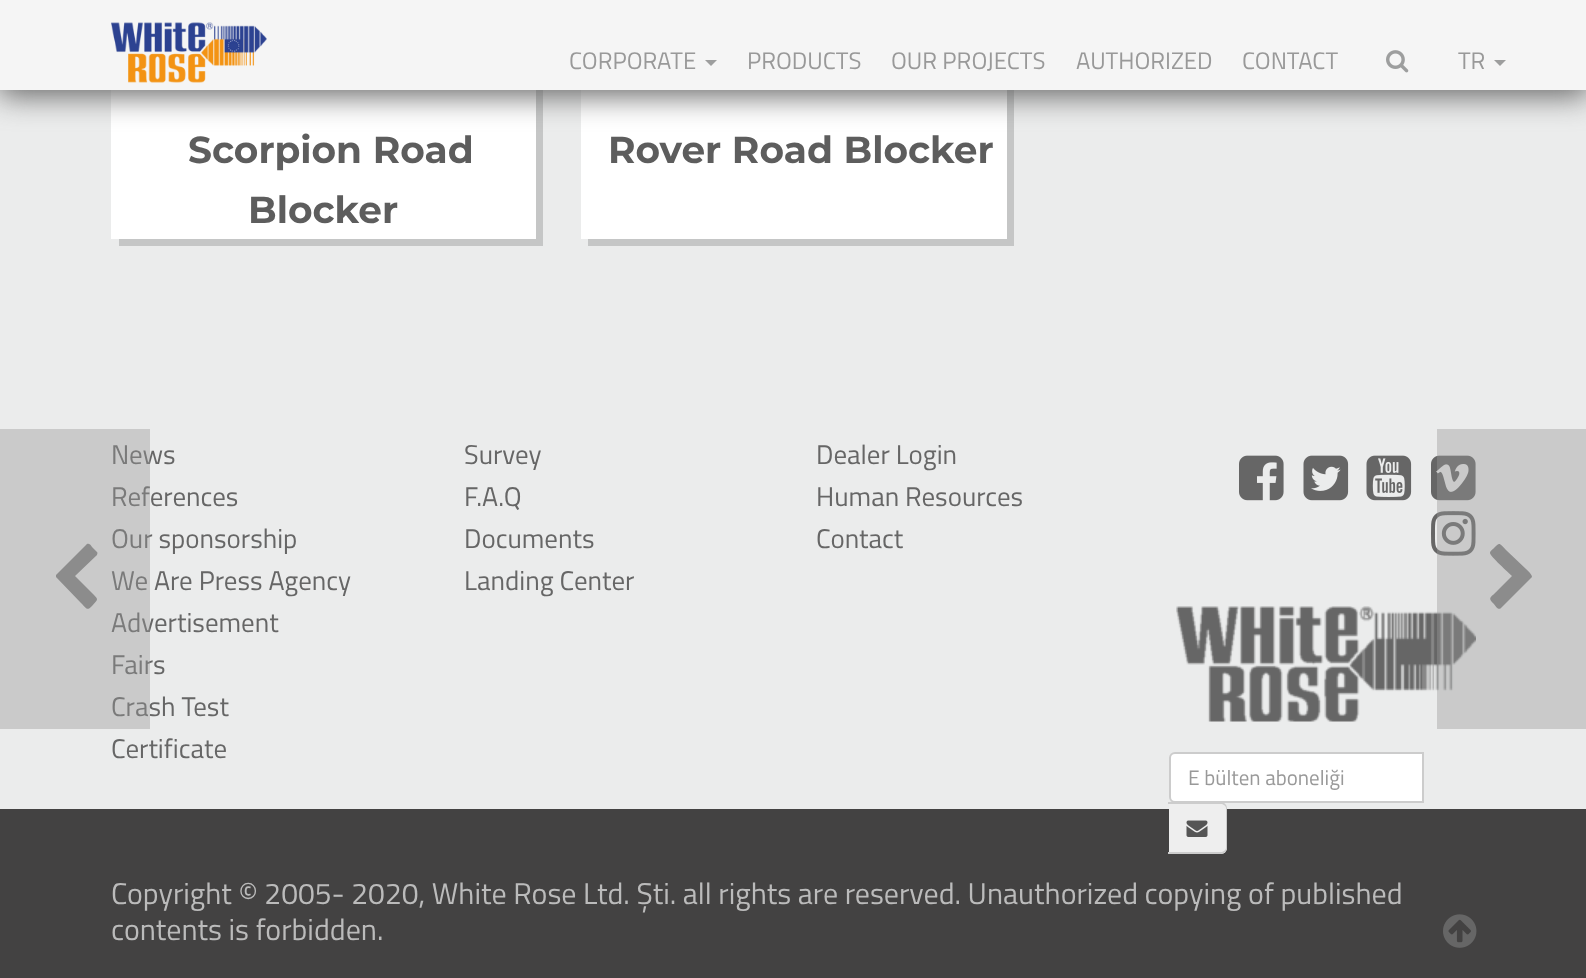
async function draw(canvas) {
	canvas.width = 1586;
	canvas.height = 978;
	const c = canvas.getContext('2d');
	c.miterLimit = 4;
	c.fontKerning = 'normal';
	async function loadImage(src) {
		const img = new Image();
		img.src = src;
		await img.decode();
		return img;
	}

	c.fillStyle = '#ebecec';
	c.fillRect(0, 0, 1586, 978);
	c.fillStyle = '#c5c6c6';
	c.beginPath();
	c.moveTo(119, 238);
	c.lineTo(119, 246);
	c.lineTo(543, 246);
	c.lineTo(543, -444);
	c.lineTo(536, -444);
	c.lineTo(536, 238);
	c.closePath();
	c.fill();
	c.fillStyle = '#fff';
	c.fillRect(111, 90, 425, 149);
	c.fillStyle = '#c5c6c6';
	c.beginPath();
	c.moveTo(588, 238);
	c.lineTo(588, 246);
	c.lineTo(1014, 246);
	c.lineTo(1014, -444);
	c.lineTo(1006, -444);
	c.lineTo(1006, 238);
	c.closePath();
	c.fill();
	c.fillStyle = '#fff';
	c.fillRect(581, 90, 426, 149);
	c.fillStyle = '#666';
	c.filter = 'blur(15px)';
	c.beginPath();
	c.rect(-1, 3, 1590, 93);
	c.fill();
	c.filter = 'none';
	c.fillStyle = '#f5f5f5';
	c.fillRect(0, 0, 1586, 90);
	c.drawImage(await loadImage('img1.png'), 111, 22, 156, 61);
	c.font = '24px Titillium Web';
	c.fillStyle = '#999';
	c.fillText('CORPORATE', 569, 69);
	c.fillStyle = '#9d9e9e';
	c.beginPath();
	c.moveTo(705, 60);
	c.lineTo(717, 60);
	c.lineTo(711, 66);
	c.closePath();
	c.fill();
	c.fillStyle = '#999';
	for (const [text, x, y] of [
		['PRODUCTS', 747, 69],
		['OUR PROJECTS', 891, 69],
		['AUTHORIZED', 1076, 69],
		['CONTACT', 1242, 69],
	]) {
		c.fillText(text, x, y);
	}
	c.drawImage(await loadImage('img2.png'), 1386, 50, 23, 23);
	c.fillText('TR', 1458, 69);
	c.fillStyle = '#9d9e9e';
	c.beginPath();
	c.moveTo(1494, 60);
	c.lineTo(1506, 60);
	c.lineTo(1500, 66);
	c.closePath();
	c.fill();
	c.font = 'bold 37.5px Montserrat';
	c.fillStyle = '#5d5d5d';
	for (const [text, x, y] of [
		['Scorpion Road', 188, 163],
		['Blocker', 248, 223],
		['Rover Road Blocker', 608, 163],
	]) {
		c.fillText(text, x, y);
	}
	c.font = '27px Titillium Web';
	c.fillStyle = '#666';
	for (const [text, x, y] of [
		['News', 111, 464],
		['References', 111, 506],
		['Our sponsorship', 111, 548],
		['We Are Press Agency', 111, 590],
		['Advertisement', 111, 632],
		['Fairs', 111, 674],
		['Crash Test', 111, 716],
	]) {
		c.fillText(text, x, y);
	}
	c.fillStyle = '#99999966';
	c.fillRect(0, 429, 150, 300);
	c.fillStyle = '#8c8c8c';
	c.beginPath();
	c.moveTo(97, 555);
	c.lineTo(75, 576);
	c.lineTo(93, 594);
	c.bezierCurveTo(99, 600, 98, 599, 92, 606);
	c.bezierCurveTo(87, 611, 87, 609, 81, 603);
	c.lineTo(56, 577);
	c.lineTo(56, 575);
	c.lineTo(86, 545);
	c.bezierCurveTo(88, 542, 91, 545, 92, 547);
	c.lineTo(97, 552);
	c.bezierCurveTo(98, 553, 97, 554, 97, 555);
	c.closePath();
	c.fill();
	c.fillStyle = '#434242';
	c.fillRect(0, 809, 1586, 169);
	c.fillStyle = '#666';
	for (const [text, x, y] of [
		['Certificate', 111, 758],
		['Survey', 464, 464],
		['F.A.Q', 464, 506],
		['Documents', 464, 548],
		['Landing Center', 464, 590],
		['Dealer Login', 816, 464],
		['Human Resources', 816, 506],
		['Contact', 816, 548],
	]) {
		c.fillText(text, x, y);
	}
	c.drawImage(await loadImage('img3.png'), 1239, 455, 45, 46);
	c.drawImage(await loadImage('img4.png'), 1303, 455, 46, 46);
	c.drawImage(await loadImage('img5.png'), 1366, 455, 46, 46);
	c.drawImage(await loadImage('img6.png'), 1431, 455, 45, 46);
	c.drawImage(await loadImage('img7.png'), 1431, 511, 45, 45);
	c.drawImage(await loadImage('img8.png'), 1176, 606, 300, 116);
	c.fillStyle = '#eee';
	c.beginPath();
	c.roundRect(1169, 803, 58, 51, [0, 6, 6, 0]);
	c.fill();
	c.fillStyle = '#ccc';
	c.beginPath();
	c.moveTo(1168, 802);
	c.lineTo(1221, 802);
	c.bezierCurveTo(1224, 802, 1227, 805, 1227, 808);
	c.lineTo(1227, 848);
	c.bezierCurveTo(1227, 851, 1224, 854, 1221, 854);
	c.lineTo(1168, 854);
	c.closePath();
	c.moveTo(1168, 804);
	c.lineTo(1221, 804);
	c.bezierCurveTo(1223, 804, 1226, 806, 1226, 808);
	c.lineTo(1226, 848);
	c.bezierCurveTo(1226, 850, 1223, 852, 1221, 852);
	c.lineTo(1168, 852);
	c.closePath();
	c.fill('evenodd');
	c.fillStyle = '#fff';
	c.beginPath();
	c.roundRect(1170, 753, 253, 49, [5, 0, 0, 5]);
	c.fill();
	c.strokeStyle = '#ccc';
	c.lineWidth = 2;
	c.stroke();
	c.font = '21px Titillium Web';
	c.fillStyle = '#999';
	c.fillText('E bülten aboneliği', 1188, 785);
	c.drawImage(await loadImage('img9.png'), 1186, 820, 22, 17);
	c.font = '30px Titillium Web';
	c.fillStyle = '#bbb';
	c.fillText('Copyright © 2005- 2020, White Rose Ltd. Şti. all rights are reserved. Unauthorized copying of published', 111, 904);
	c.fillText('contents is forbidden.', 111, 940);
	c.drawImage(await loadImage('img10.png'), 1443, 914, 34, 34);
	c.fillStyle = '#99999966';
	c.fillRect(1437, 429, 149, 300);
	c.fillStyle = '#8c8c8c';
	c.beginPath();
	c.moveTo(1531, 578);
	c.lineTo(1501, 608);
	c.bezierCurveTo(1498, 611, 1495, 605, 1493, 603);
	c.bezierCurveTo(1487, 597, 1492, 597, 1498, 590);
	c.lineTo(1512, 576);
	c.bezierCurveTo(1509, 573, 1490, 556, 1490, 553);
	c.bezierCurveTo(1490, 551, 1493, 549, 1494, 548);
	c.bezierCurveTo(1500, 542, 1499, 543, 1506, 550);
	c.lineTo(1526, 569);
	c.bezierCurveTo(1527, 570, 1532, 574, 1532, 577);
	c.closePath();
	c.fill();
}

draw(document.querySelector('canvas'));
